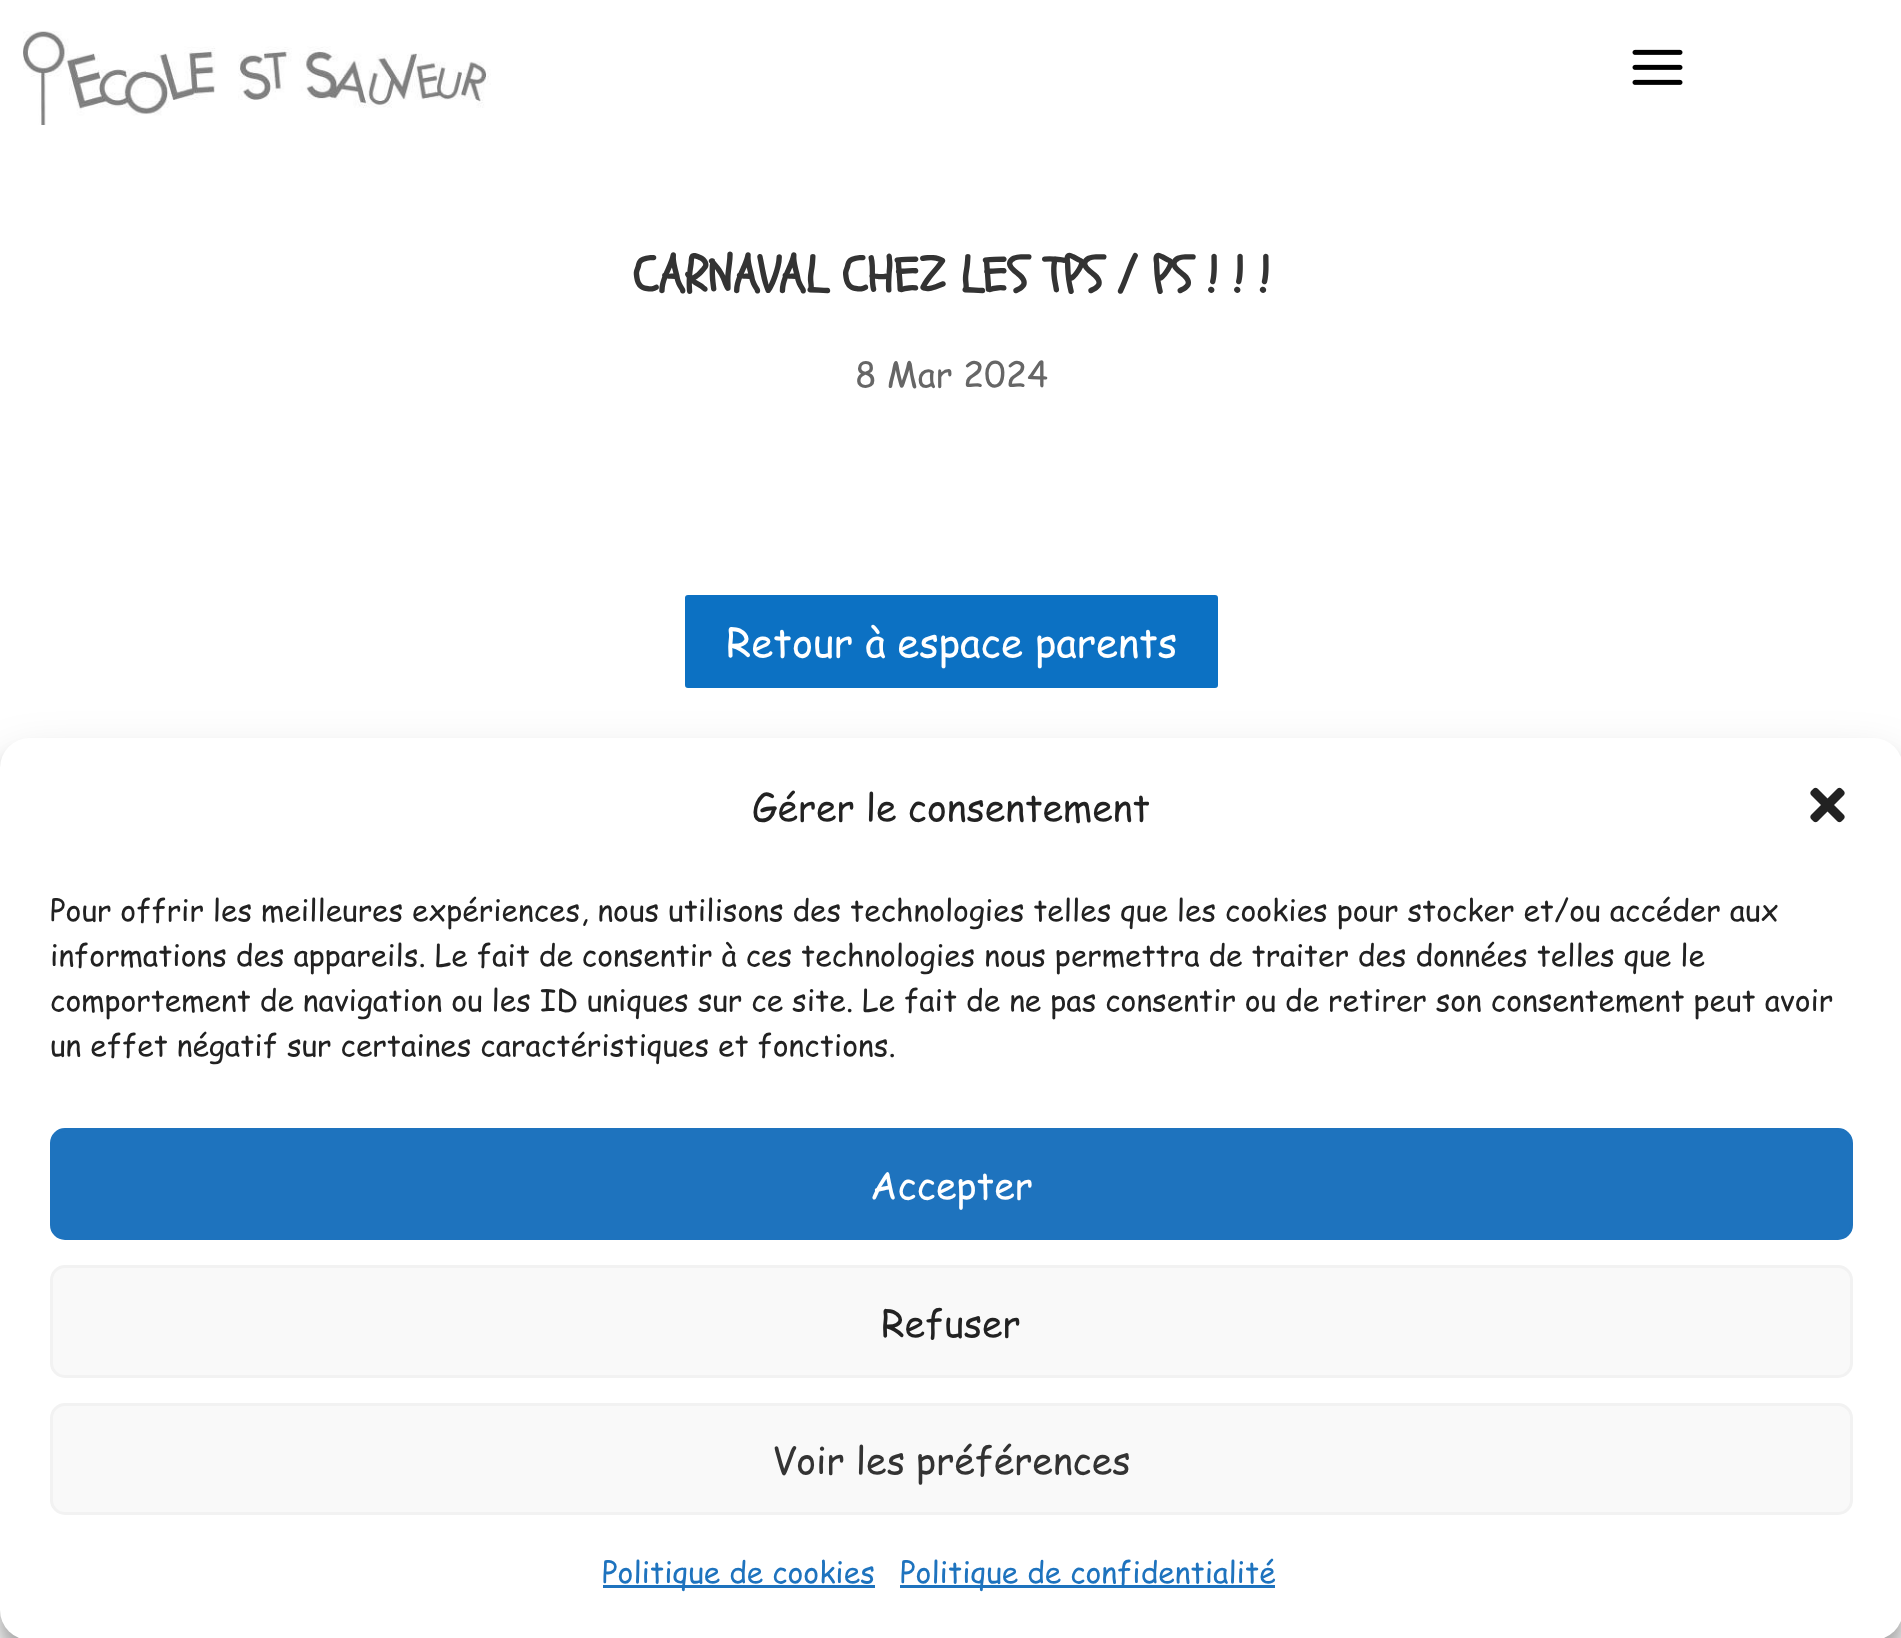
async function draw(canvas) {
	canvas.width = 1901;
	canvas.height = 1638;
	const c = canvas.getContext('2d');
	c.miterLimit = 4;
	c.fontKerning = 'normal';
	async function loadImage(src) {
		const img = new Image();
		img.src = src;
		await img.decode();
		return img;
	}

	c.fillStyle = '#fff';
	c.fillRect(0, 0, 1901, 1638);
	c.drawImage(await loadImage('img1.png'), 23, 31, 468, 94);
	c.drawImage(await loadImage('img2.png'), 1632, 49, 51, 36);
	c.font = 'bold 50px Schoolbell';
	c.fillStyle = '#333';
	c.fillText('CARNAVAL CHEZ LES TPS / PS ! ! !', 633, 292);
	c.font = '35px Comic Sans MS';
	c.fillStyle = '#666';
	c.fillText('8 Mar 2024', 855, 387);
	c.fillStyle = '#0c71c3';
	c.beginPath();
	c.roundRect(682.5, 592.5, 538, 98, 5.5);
	c.fill();
	c.strokeStyle = '#fff';
	c.lineWidth = 5;
	c.stroke();
	c.font = '40px Comic Sans MS';
	c.fillStyle = '#fff';
	c.fillText('Retour à espace parents', 726, 657);
	c.fillStyle = '#0000003b';
	c.filter = 'blur(7.5px)';
	c.beginPath();
	c.roundRect(0, 753, 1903, 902, 30);
	c.fill();
	c.filter = 'none';
	c.fillStyle = '#00000030';
	c.filter = 'blur(25px)';
	c.beginPath();
	c.roundRect(0, 763, 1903, 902, 30);
	c.fill();
	c.filter = 'none';
	c.fillStyle = '#fff';
	c.beginPath();
	c.roundRect(0, 738, 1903, 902, 30);
	c.fill();
	c.font = '37.5px Comic Sans MS';
	c.fillStyle = '#222';
	c.fillText('Gérer le consentement', 752, 821);
	c.drawImage(await loadImage('img3.png'), 1810, 787, 35, 36);
	c.font = '30px Comic Sans MS';
	for (const [text, x, y] of [
		['Pour offrir les meilleures expériences, nous utilisons des technologies telles que les cookies pour stocker et/ou accéder aux', 50, 921],
		['informations des appareils. Le fait de consentir à ces technologies nous permettra de traiter des données telles que le', 50, 966],
		['comportement de navigation ou les ID uniques sur ce site. Le fait de ne pas consentir ou de retirer son consentement peut avoir', 50, 1011],
		['un effet négatif sur certaines caractéristiques et fonctions.', 50, 1056],
	]) {
		c.fillText(text, x, y);
	}
	c.fillStyle = '#1e73be';
	c.beginPath();
	c.roundRect(51.5, 1129.5, 1800, 109, 13.5);
	c.fill();
	c.strokeStyle = '#1e73be';
	c.lineWidth = 3;
	c.stroke();
	c.font = '37.5px Comic Sans MS';
	c.fillStyle = '#fff';
	c.fillText('Accepter', 870, 1199);
	c.fillStyle = '#f9f9f9';
	c.beginPath();
	c.roundRect(51.5, 1266.5, 1800, 110, 13.5);
	c.fill();
	c.strokeStyle = '#f2f2f2';
	c.stroke();
	c.fillStyle = '#222';
	c.fillText('Refuser', 881, 1337);
	c.fillStyle = '#f9f9f9';
	c.beginPath();
	c.roundRect(51.5, 1404.5, 1800, 109, 13.5);
	c.fill();
	c.stroke();
	c.fillStyle = '#333';
	c.fillText('Voir les préférences', 772, 1474);
	c.fillStyle = '#1e73be';
	c.fillRect(603, 1585, 272, 3);
	c.font = '30px Comic Sans MS';
	c.fillText('Politique de cookies', 602, 1583);
	c.fillRect(900, 1585, 375, 3);
	c.fillText('Politique de confidentialité', 900, 1583);
}

draw(document.querySelector('canvas'));
